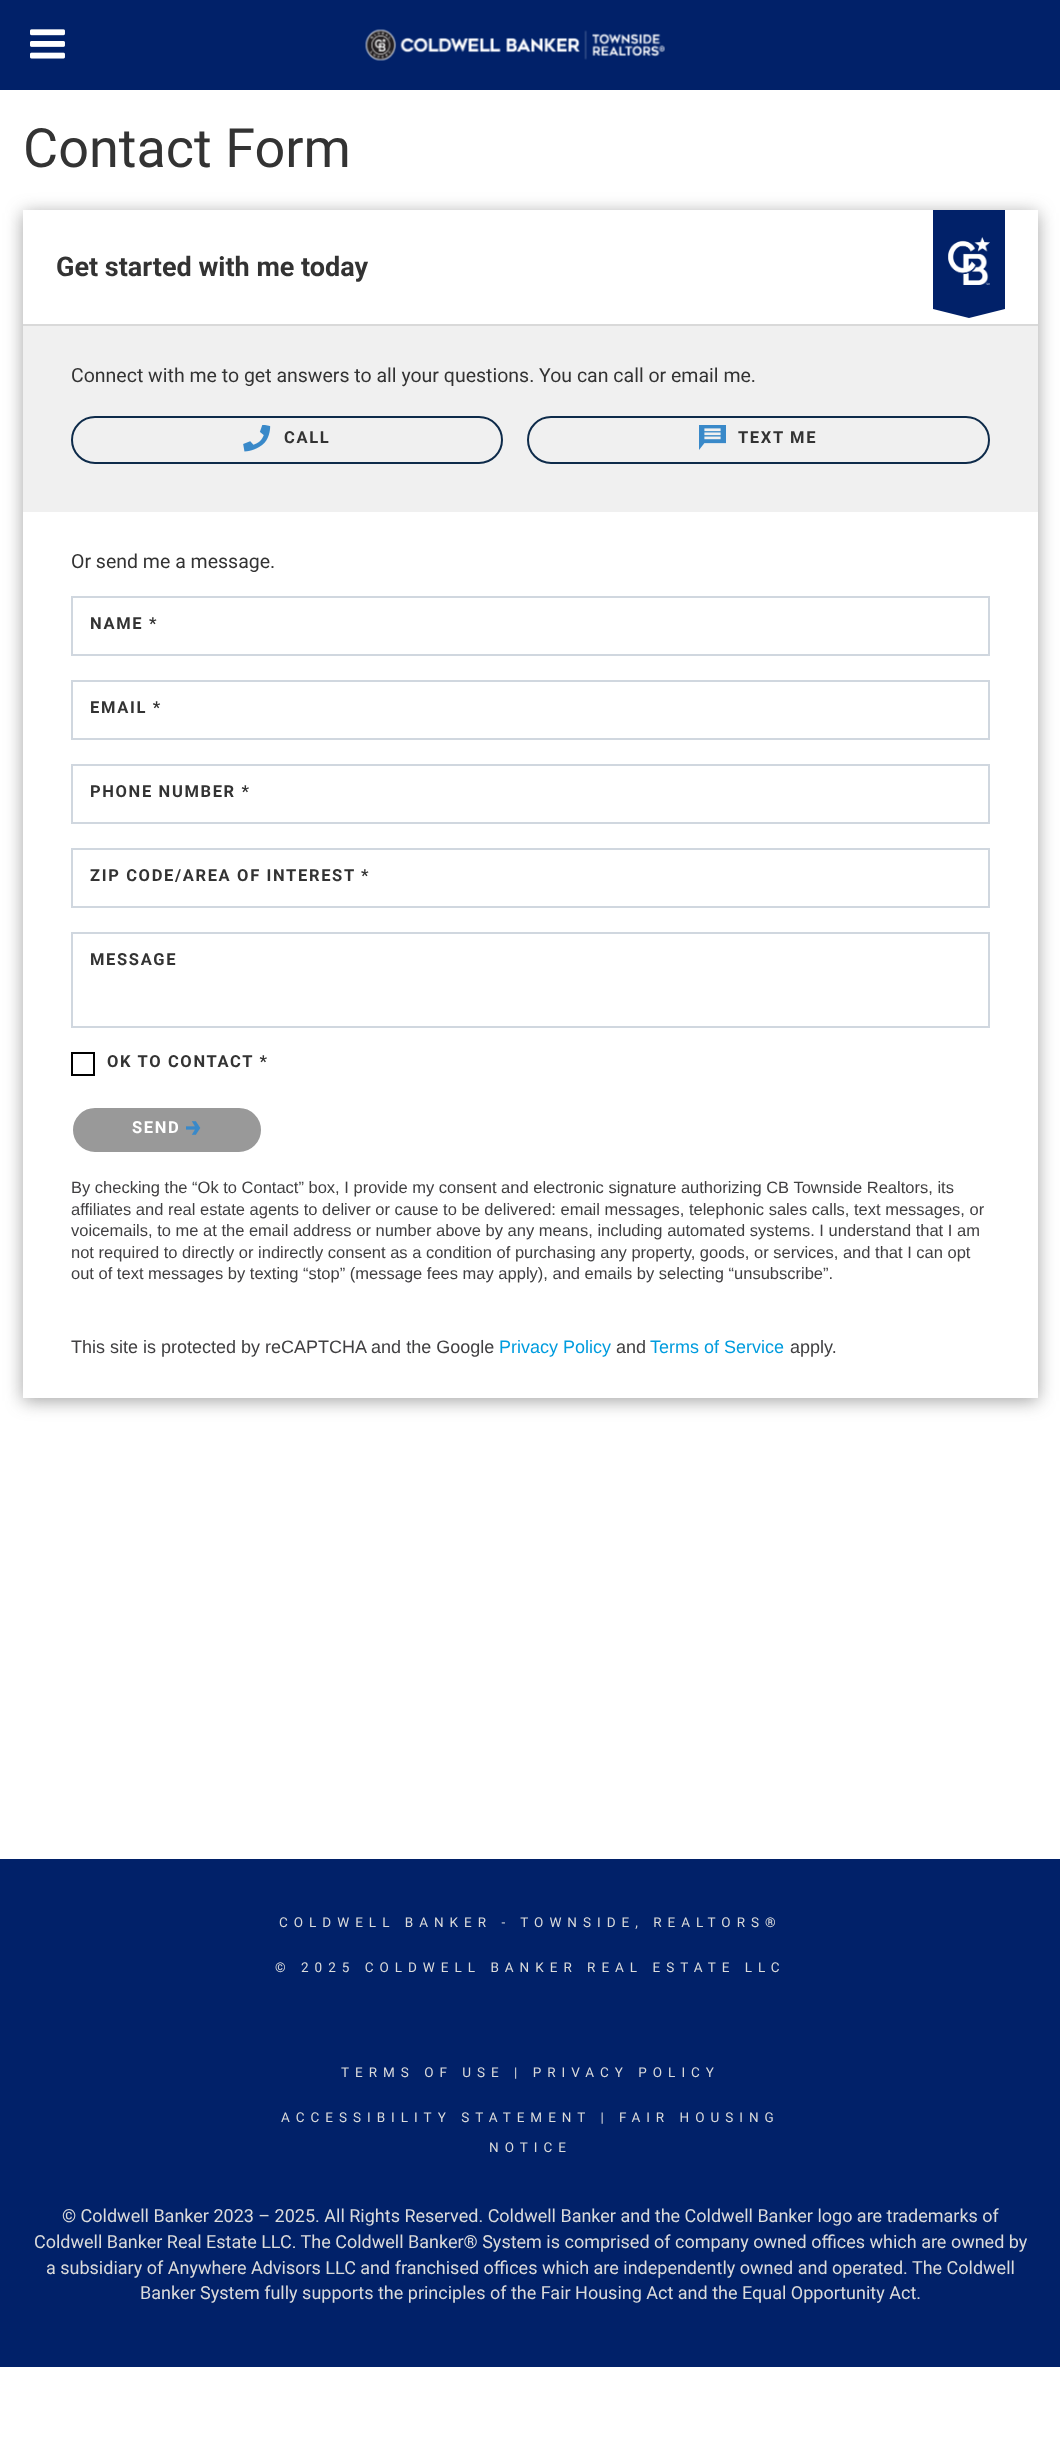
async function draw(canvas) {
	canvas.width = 1060;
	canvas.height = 2456;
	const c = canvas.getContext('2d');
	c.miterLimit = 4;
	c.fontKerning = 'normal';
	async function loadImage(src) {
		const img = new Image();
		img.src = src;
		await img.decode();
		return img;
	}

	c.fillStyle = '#fff';
	c.fillRect(0, 0, 1060, 2456);
	c.fillStyle = '#012169';
	c.fillRect(0, 0, 1060, 90);
	c.drawImage(await loadImage('img1.png'), 30, 29, 35, 30);
	c.drawImage(await loadImage('img2.png'), 365, 29, 300, 32);
	c.font = '54px Roboto';
	c.fillStyle = '#333';
	c.fillText('Contact Form', 23, 167);
	c.save();
	c.beginPath();
	c.moveTo(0, 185);
	c.lineTo(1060, 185);
	c.lineTo(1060, 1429);
	c.lineTo(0, 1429);
	c.closePath();
	c.moveTo(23, 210);
	c.lineTo(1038, 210);
	c.lineTo(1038, 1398);
	c.lineTo(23, 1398);
	c.closePath();
	c.clip('evenodd');
	c.fillStyle = '#47474780';
	c.filter = 'blur(9px)';
	c.beginPath();
	c.rect(23, 213, 1015, 1188);
	c.fill();
	c.filter = 'none';
	c.restore();
	c.fillStyle = '#d9d9d9';
	c.fillRect(23, 324, 1015, 2);
	c.font = 'bold 27px Roboto';
	c.fillStyle = '#333';
	c.fillText('Get started with me today', 56, 276);
	c.drawImage(await loadImage('img3.png'), 933, 210, 72, 108);
	c.fillStyle = '#f0f0f0';
	c.fillRect(23, 326, 1015, 186);
	c.font = '19.5px Roboto';
	c.fillStyle = '#333';
	c.fillText('Connect with me to get answers to all your questions. You can call or email me.', 71, 382);
	c.beginPath();
	c.roundRect(72, 417, 430, 46, 23);
	c.strokeStyle = '#0e2b4a';
	c.lineWidth = 2;
	c.stroke();
	c.drawImage(await loadImage('img4.png'), 243, 425, 28, 27);
	c.letterSpacing = '1.65px';
	c.font = 'bold 16.5px Roboto';
	c.fillText('CALL', 284, 443);
	c.beginPath();
	c.roundRect(528, 417, 461, 46, 23);
	c.stroke();
	c.drawImage(await loadImage('img5.png'), 699, 425, 27, 25);
	c.fillText('TEXT ME', 738, 443);
	c.letterSpacing = '0px';
	c.font = '19.5px Roboto';
	c.fillText('Or send me a message.', 71, 568);
	c.strokeStyle = '#d0d7df';
	c.strokeRect(72, 597, 917, 58);
	c.letterSpacing = '1.65px';
	c.font = 'bold 16.5px Roboto';
	c.fillText('NAME *', 90, 629);
	c.strokeRect(72, 681, 917, 58);
	c.fillText('EMAIL *', 90, 713);
	c.strokeRect(72, 765, 917, 58);
	c.fillText('PHONE NUMBER *', 90, 797);
	c.strokeRect(72, 849, 917, 58);
	c.fillText('ZIP CODE/AREA OF INTEREST *', 90, 881);
	c.strokeRect(72, 933, 917, 94);
	c.fillText('MESSAGE', 90, 965);
	c.strokeStyle = '#000';
	c.strokeRect(72, 1053, 22, 22);
	c.fillText('OK TO CONTACT *', 107, 1067);
	c.fillStyle = '#999';
	c.beginPath();
	c.roundRect(72, 1107, 190, 46, 23);
	c.fill();
	c.strokeStyle = '#fff';
	c.stroke();
	c.fillStyle = '#fff';
	c.fillText('SEND', 132, 1133);
	c.drawImage(await loadImage('img6.png'), 186, 1121, 15, 14);
	c.letterSpacing = '0px';
	c.font = '16.5px Liberation Sans';
	c.fillStyle = '#414042';
	for (const [text, x, y] of [
		['By checking the “Ok to Contact” box, I provide my consent and electronic signature authorizing CB Townside Realtors, its', 71, 1193],
		['affiliates and real estate agents to deliver or cause to be delivered: email messages, telephonic sales calls, text messages, or', 71, 1215],
		['voicemails, to me at the email address or number above by any means, including automated systems. I understand that I am', 71, 1236],
		['not required to directly or indirectly consent as a condition of purchasing any property, goods, or services, and that I can opt', 71, 1258],
		['out of text messages by texting “stop” (message fees may apply), and emails by selecting “unsubscribe”.', 71, 1279],
	]) {
		c.fillText(text, x, y);
	}
	c.font = '18px Liberation Sans';
	c.fillText('This site is protected by reCAPTCHA and the Google', 71, 1353);
	c.fillStyle = '#009cde';
	c.fillText('Privacy Policy', 499, 1353);
	c.fillStyle = '#414042';
	c.fillText('and', 616, 1353);
	c.fillStyle = '#009cde';
	c.fillText('Terms of Service', 650, 1353);
	c.fillStyle = '#414042';
	c.fillText('apply.', 790, 1353);
	c.fillStyle = '#012169';
	c.fillRect(0, 1859, 1060, 508);
	c.letterSpacing = '6px';
	c.font = '13.5px Roboto';
	c.fillStyle = '#dbdbdb';
	for (const [text, x, y] of [
		['COLDWELL BANKER - TOWNSIDE, REALTORS®', 279, 1927],
		['© 2025 COLDWELL BANKER REAL ESTATE LLC', 275, 1972],
		['TERMS OF USE | PRIVACY POLICY', 341, 2077],
		['ACCESSIBILITY STATEMENT | FAIR HOUSING', 281, 2122],
		['NOTICE', 489, 2152],
	]) {
		c.fillText(text, x, y);
	}
	c.letterSpacing = '0px';
	c.font = '18px Roboto';
	for (const [text, x, y] of [
		['© Coldwell Banker 2023 – 2025. All Rights Reserved. Coldwell Banker and the Coldwell Banker logo are trademarks of', 62, 2222],
		['Coldwell Banker Real Estate LLC. The Coldwell Banker® System is comprised of company owned offices which are owned by', 34, 2248],
		['a subsidiary of Anywhere Advisors LLC and franchised offices which are independently owned and operated. The Coldwell', 46, 2274],
		['Banker System fully supports the principles of the Fair Housing Act and the Equal Opportunity Act.', 140, 2299],
	]) {
		c.fillText(text, x, y);
	}
}

draw(document.querySelector('canvas'));
